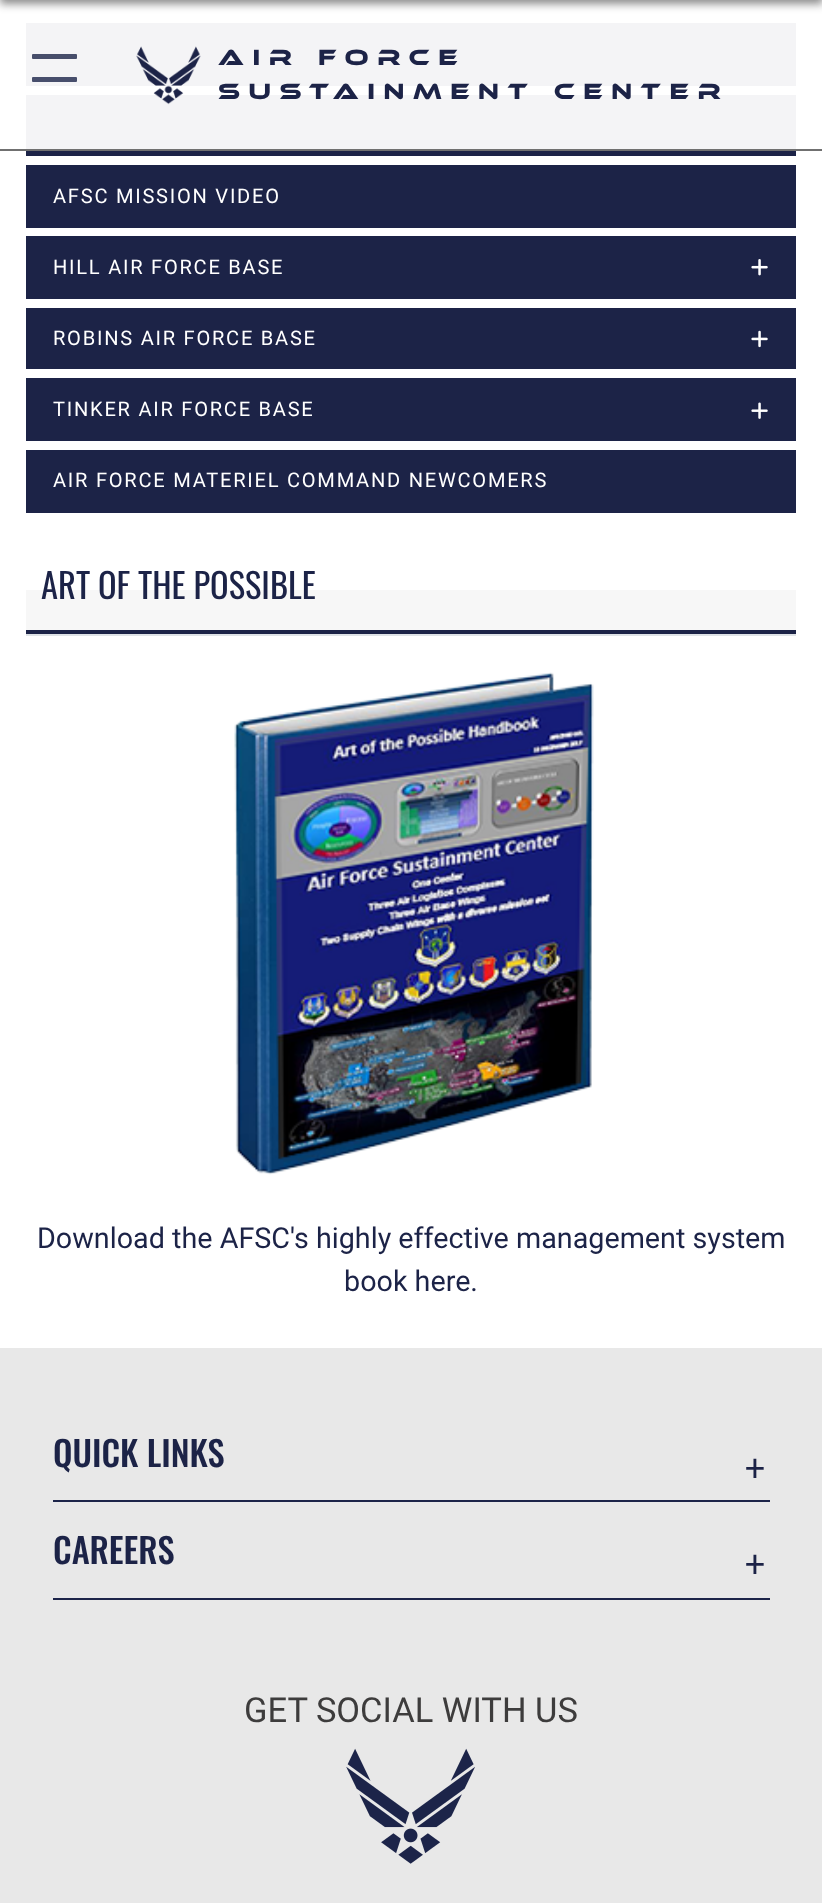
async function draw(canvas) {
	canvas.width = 822;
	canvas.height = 1903;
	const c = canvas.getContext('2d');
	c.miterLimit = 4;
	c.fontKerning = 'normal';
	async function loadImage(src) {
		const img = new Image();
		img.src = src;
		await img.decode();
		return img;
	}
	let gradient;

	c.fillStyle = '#fff';
	c.fillRect(0, 0, 822, 1903);
	c.fillStyle = '#19191980';
	c.filter = 'blur(4.5px)';
	c.beginPath();
	c.rect(0, -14, 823, 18);
	c.fill();
	c.filter = 'none';
	c.fillStyle = '#707070';
	c.fillRect(0, 149, 822, 2);
	c.fillStyle = '#f4f4f6';
	c.fillRect(26, 23, 770, 63);
	c.fillStyle = '#1c2449cc';
	c.beginPath();
	c.roundRect(32, 54, 45, 5, 1);
	c.fill();
	c.fillStyle = '#474e6c';
	c.beginPath();
	c.roundRect(32, 77, 45, 5, 1);
	c.fill();
	c.fillStyle = '#f4f4f6';
	c.fillRect(26, 95, 770, 54);
	c.drawImage(await loadImage('img1.png'), 136, 46, 65, 59);
	c.letterSpacing = '8.6px';
	c.font = '22.75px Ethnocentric';
	c.fillStyle = '#1c2347';
	c.fillText('Air Force', 218, 65);
	c.fillText('Sustainment Center', 218, 99);
	c.fillRect(26, 151, 770, 5);
	c.fillRect(26, 165, 770, 63);
	c.letterSpacing = '1.75px';
	c.font = '20.1px Roboto';
	c.fillStyle = '#fff';
	c.fillText('AFSC MISSION VIDEO', 53, 203);
	c.fillStyle = '#1c2347';
	c.fillRect(26, 236, 770, 63);
	c.fillStyle = '#fff';
	c.fillText('HILL AIR FORCE BASE', 53, 274);
	c.drawImage(await loadImage('img2.png'), 751, 259, 17, 17);
	c.fillStyle = '#1c2347';
	c.fillRect(26, 308, 770, 61);
	c.fillStyle = '#fff';
	c.fillText('ROBINS AIR FORCE BASE', 53, 345);
	c.drawImage(await loadImage('img3.png'), 751, 330, 17, 18);
	c.fillStyle = '#1c2347';
	c.fillRect(26, 378, 770, 63);
	c.fillStyle = '#fff';
	c.fillText('TINKER AIR FORCE BASE', 53, 416);
	c.drawImage(await loadImage('img4.png'), 751, 402, 17, 17);
	c.fillStyle = '#1c2347';
	c.fillRect(26, 450, 770, 63);
	c.fillStyle = '#fff';
	c.fillText('AIR FORCE MATERIEL COMMAND NEWCOMERS', 53, 487);
	gradient = c.createLinearGradient(411, 564, 411, 634);
	gradient.addColorStop(0, '#fff');
	gradient.addColorStop(0.37, '#fff');
	gradient.addColorStop(0.37, '#f7f7f7');
	gradient.addColorStop(1, '#f7f7f7');
	c.fillStyle = gradient;
	c.fillRect(26, 590, 770, 40);
	c.fillStyle = '#dee2e6';
	c.fillRect(26, 634, 770, 2);
	c.letterSpacing = '0px';
	c.font = '34.5px Oswald';
	c.fillStyle = '#1c2347';
	c.fillText('ART OF THE POSSIBLE', 41, 599);
	c.fillRect(26, 630, 770, 4);
	c.drawImage(await loadImage('img5.png'), 234, 672, 360, 503);
	c.font = '28.75px Roboto';
	c.fillText('Download the AFSC\'s highly effective management system', 37, 1248);
	c.fillText('book here.', 344, 1291);
	c.fillStyle = '#e8e8e8';
	c.fillRect(0, 1348, 822, 555);
	c.fillStyle = '#1c2449';
	c.fillRect(53, 1500, 717, 2);
	c.font = '500 34.5px Oswald';
	c.fillStyle = '#1c2347';
	c.fillText('QUICK LINKS', 53, 1467);
	c.font = '300 52px Oswald';
	c.fillText('+', 745, 1490);
	c.fillStyle = '#1c2449';
	c.fillRect(53, 1598, 717, 2);
	c.font = '500 34.5px Oswald';
	c.fillStyle = '#1c2347';
	c.fillText('CAREERS', 53, 1564);
	c.font = '300 52px Oswald';
	c.fillText('+', 745, 1586);
	c.font = '34.5px Roboto';
	c.fillStyle = '#3d3c3c';
	c.fillText('GET SOCIAL WITH US', 244, 1722);
	c.drawImage(await loadImage('img6.png'), 346, 1748, 129, 116);
}

draw(document.querySelector('canvas'));
